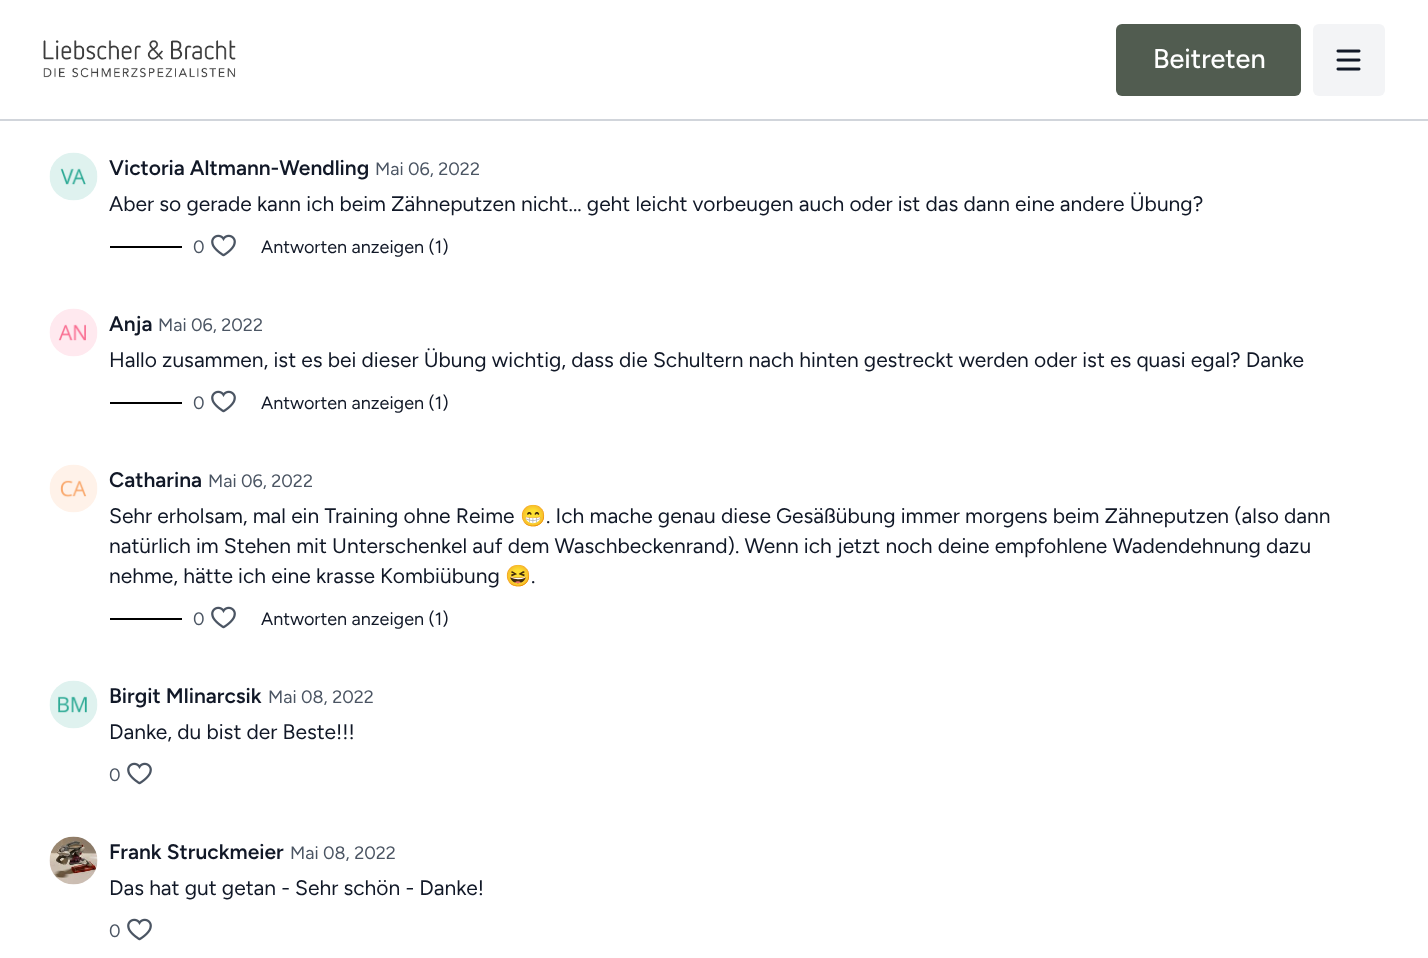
async function draw(canvas) {
	canvas.width = 1428;
	canvas.height = 958;
	const c = canvas.getContext('2d');
	c.miterLimit = 4;
	c.fontKerning = 'normal';
	async function loadImage(src) {
		const img = new Image();
		img.src = src;
		await img.decode();
		return img;
	}

	c.fillStyle = '#fff';
	c.fillRect(0, 0, 1428, 958);
	c.fillStyle = '#d1d5db';
	c.fillRect(0, 119, 1428, 2);
	c.drawImage(await loadImage('img1.png'), 43, 40, 193, 38);
	c.fillStyle = '#515c50';
	c.beginPath();
	c.roundRect(1116, 24, 185, 72, 6);
	c.fill();
	c.font = '500 27px Figtree';
	c.fillStyle = '#fff';
	c.fillText('Beitreten', 1153, 68);
	c.fillStyle = '#f3f4f6';
	c.beginPath();
	c.roundRect(1313, 24, 72, 72, 6);
	c.fill();
	c.drawImage(await loadImage('img2.png'), 1336, 49, 25, 22);
	c.drawImage(await loadImage('img3.png'), 49, 152, 49, 49);
	c.font = '600 21px Figtree';
	c.fillStyle = '#111827';
	c.fillText('Victoria Altmann-Wendling', 109, 175);
	c.font = '18px Figtree';
	c.fillStyle = '#4b5563';
	c.fillText('Mai 06, 2022', 375, 175);
	c.font = '21px Figtree';
	c.fillStyle = '#111827';
	c.fillText('Aber so gerade kann ich beim Zähneputzen nicht... geht leicht vorbeugen auch oder ist das dann eine andere Übung?', 109, 211);
	c.fillStyle = '#000';
	c.fillRect(110, 246, 72, 2);
	c.font = '18px Figtree';
	c.fillStyle = '#4b5563';
	c.fillText('0', 193, 253);
	c.drawImage(await loadImage('img4.png'), 211, 234, 25, 23);
	c.fillStyle = '#111827';
	c.fillText('Antworten anzeigen (1)', 261, 253);
	c.drawImage(await loadImage('img5.png'), 49, 308, 49, 49);
	c.font = '600 21px Figtree';
	c.fillText('Anja', 109, 331);
	c.font = '18px Figtree';
	c.fillStyle = '#4b5563';
	c.fillText('Mai 06, 2022', 158, 331);
	c.font = '21px Figtree';
	c.fillStyle = '#111827';
	c.fillText('Hallo zusammen, ist es bei dieser Übung wichtig, dass die Schultern nach hinten gestreckt werden oder ist es quasi egal? Danke', 109, 367);
	c.fillStyle = '#000';
	c.fillRect(110, 402, 72, 2);
	c.font = '18px Figtree';
	c.fillStyle = '#4b5563';
	c.fillText('0', 193, 409);
	c.drawImage(await loadImage('img4.png'), 211, 390, 25, 23);
	c.fillStyle = '#111827';
	c.fillText('Antworten anzeigen (1)', 261, 409);
	c.drawImage(await loadImage('img6.png'), 49, 464, 49, 49);
	c.font = '600 21px Figtree';
	c.fillText('Catharina', 109, 487);
	c.font = '18px Figtree';
	c.fillStyle = '#4b5563';
	c.fillText('Mai 06, 2022', 208, 487);
	c.font = '21px Figtree';
	c.fillStyle = '#111827';
	c.fillText('Sehr erholsam, mal ein Training ohne Reime', 109, 523);
	c.font = '21px Noto Color Emoji';
	c.fillText('😁', 520, 523);
	c.font = '21px Figtree';
	for (const [text, x, y] of [
		['. Ich mache genau diese Gesäßübung immer morgens beim Zähneputzen (also dann', 546, 523],
		['natürlich im Stehen mit Unterschenkel auf dem Waschbeckenrand). Wenn ich jetzt noch deine empfohlene Wadendehnung dazu', 109, 553],
		['nehme, hätte ich eine krasse Kombiübung', 109, 583],
	]) {
		c.fillText(text, x, y);
	}
	c.font = '21px Noto Color Emoji';
	c.fillText('😆', 505, 583);
	c.font = '21px Figtree';
	c.fillText('.', 531, 583);
	c.fillStyle = '#000';
	c.fillRect(110, 618, 72, 2);
	c.font = '18px Figtree';
	c.fillStyle = '#4b5563';
	c.fillText('0', 193, 625);
	c.drawImage(await loadImage('img4.png'), 211, 606, 25, 23);
	c.fillStyle = '#111827';
	c.fillText('Antworten anzeigen (1)', 261, 625);
	c.drawImage(await loadImage('img7.png'), 49, 680, 49, 49);
	c.font = '600 21px Figtree';
	c.fillText('Birgit Mlinarcsik', 109, 703);
	c.font = '18px Figtree';
	c.fillStyle = '#4b5563';
	c.fillText('Mai 08, 2022', 268, 703);
	c.font = '21px Figtree';
	c.fillStyle = '#111827';
	c.fillText('Danke, du bist der Beste!!!', 109, 739);
	c.font = '18px Figtree';
	c.fillStyle = '#4b5563';
	c.fillText('0', 109, 781);
	c.drawImage(await loadImage('img4.png'), 127, 762, 25, 23);
	c.drawImage(await loadImage('img8.png'), 49, 836, 49, 49);
	c.font = '600 21px Figtree';
	c.fillStyle = '#111827';
	c.fillText('Frank Struckmeier', 109, 859);
	c.font = '18px Figtree';
	c.fillStyle = '#4b5563';
	c.fillText('Mai 08, 2022', 290, 859);
	c.font = '21px Figtree';
	c.fillStyle = '#111827';
	c.fillText('Das hat gut getan - Sehr schön - Danke!', 109, 895);
	c.font = '18px Figtree';
	c.fillStyle = '#4b5563';
	c.fillText('0', 109, 937);
	c.drawImage(await loadImage('img4.png'), 127, 918, 25, 23);
}

draw(document.querySelector('canvas'));
